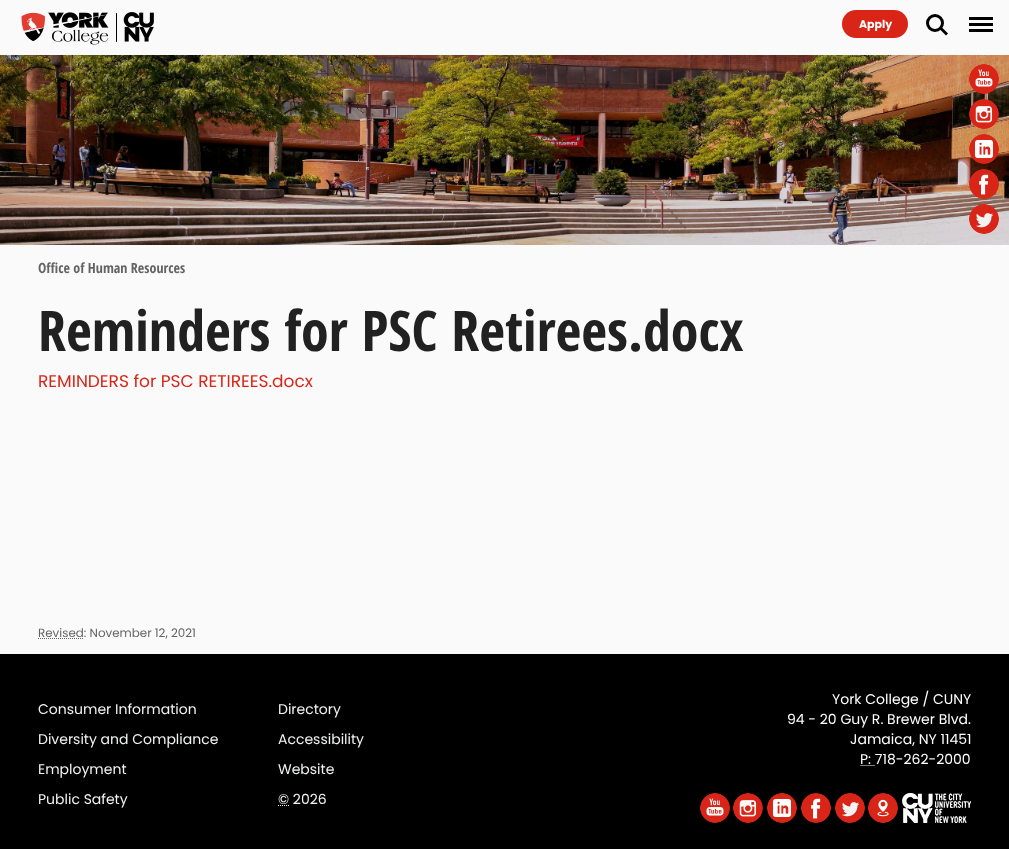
async function draw(canvas) {
	canvas.width = 1009;
	canvas.height = 849;
	const c = canvas.getContext('2d');
	c.miterLimit = 4;
	c.fontKerning = 'normal';
	async function loadImage(src) {
		const img = new Image();
		img.src = src;
		await img.decode();
		return img;
	}

	c.fillStyle = '#fafafa';
	c.fillRect(0, 0, 1009, 849);
	c.drawImage(await loadImage('img1.png'), 21, 12, 133, 33);
	c.fillStyle = '#d92518';
	c.beginPath();
	c.roundRect(842, 10, 66, 28, 14);
	c.fill();
	c.font = 'bold 11px Poppins';
	c.fillStyle = '#fff';
	c.fillText('Apply', 859, 28);
	c.beginPath();
	c.arc(935, 23, 7.5, 0, 2 * Math.PI);
	c.strokeStyle = '#000';
	c.lineWidth = 3;
	c.stroke();
	c.fillStyle = '#000';
	c.beginPath();
	c.moveTo(942, 27.5);
	c.lineTo(948, 33.5);
	c.lineTo(946, 35.5);
	c.lineTo(940, 29.5);
	c.closePath();
	c.fill();
	for (const [x, y, w, h, color] of [
		[969, 23, 24, 3, '#000'],
		[969, 17, 24, 3, '#000'],
		[969, 29, 24, 3, '#000'],
	]) {
		c.fillStyle = color;
		c.fillRect(x, y, w, h);
	}
	c.drawImage(await loadImage('img7.png'), 0, 55, 1009, 190);
	c.drawImage(await loadImage('img2.png'), 969, 64, 30, 30);
	c.drawImage(await loadImage('img3.png'), 969, 99, 30, 30);
	c.drawImage(await loadImage('img4.png'), 969, 134, 30, 30);
	c.drawImage(await loadImage('img5.png'), 969, 169, 30, 30);
	c.drawImage(await loadImage('img6.png'), 969, 204, 30, 30);
	c.font = 'bold 14px Open Sans Condensed';
	c.fillStyle = '#646464';
	c.fillText('Office of Human Resources', 38, 273);
	c.font = 'bold 56px Open Sans Condensed';
	c.fillStyle = '#212121';
	c.fillText('Reminders for PSC Retirees.docx', 38, 351);
	c.font = '17px Poppins';
	c.fillStyle = '#d92518';
	c.fillText('REMINDERS for PSC RETIREES.docx', 38, 387);
	c.beginPath();
	c.moveTo(38, 638.5);
	c.lineTo(84, 638.5);
	c.strokeStyle = '#646464';
	c.lineWidth = 1;
	c.setLineDash([1, 1]);
	c.stroke();
	c.font = '11.9px Poppins';
	c.fillStyle = '#646464';
	c.fillText('Revised: November 12, 2021', 38, 637);
	c.fillStyle = '#000';
	c.fillRect(0, 654, 1009, 195);
	c.font = '14px Poppins';
	c.fillStyle = '#f0f1f1';
	for (const [text, x, y] of [
		['Consumer Information', 38, 714],
		['Diversity and Compliance', 38, 744],
		['Employment', 38, 774],
		['Public Safety', 38, 804],
		['Directory', 278, 714],
		['Accessibility', 278, 744],
		['Website', 278, 774],
		['© 2026', 278, 804],
	]) {
		c.fillText(text, x, y);
	}
	c.beginPath();
	c.moveTo(278, 805.5);
	c.lineTo(289.5, 805.5);
	c.strokeStyle = '#f0f1f1';
	c.stroke();
	c.fillStyle = '#fff';
	for (const [text, x, y] of [
		['York College / CUNY', 832, 704],
		['94 - 20 Guy R. Brewer Blvd.', 787, 724],
		['Jamaica, NY 11451', 850, 744],
		['P: 718-262-2000', 860, 764],
	]) {
		c.fillText(text, x, y);
	}
	c.beginPath();
	c.moveTo(860.5, 765.5);
	c.lineTo(875, 765.5);
	c.strokeStyle = '#fff';
	c.stroke();
	c.drawImage(await loadImage('img8.png'), 700, 793, 30, 30);
	c.drawImage(await loadImage('img9.png'), 733, 793, 30, 30);
	c.drawImage(await loadImage('img10.png'), 767, 793, 30, 30);
	c.drawImage(await loadImage('img11.png'), 801, 793, 30, 30);
	c.drawImage(await loadImage('img12.png'), 835, 793, 30, 30);
	c.drawImage(await loadImage('img13.png'), 868, 793, 30, 30);
	c.drawImage(await loadImage('img14.png'), 902, 793, 69, 30);
}

draw(document.querySelector('canvas'));
